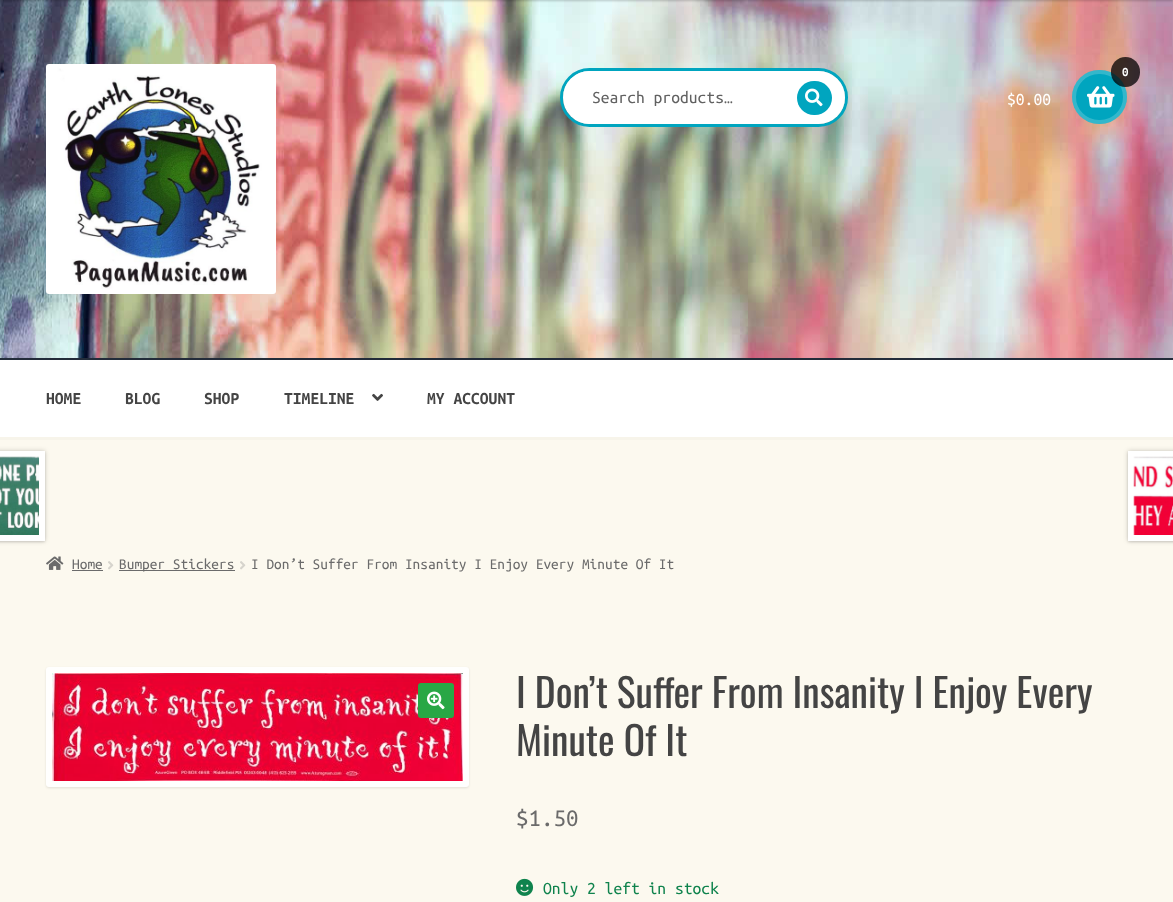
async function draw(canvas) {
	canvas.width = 1173;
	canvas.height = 902;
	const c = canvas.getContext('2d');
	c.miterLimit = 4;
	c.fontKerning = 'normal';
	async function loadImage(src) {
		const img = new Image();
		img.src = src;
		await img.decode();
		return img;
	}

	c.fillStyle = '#fcf9ef';
	c.fillRect(0, 0, 1173, 902);
	c.fillStyle = '#f7f4ea';
	c.fillRect(0, 437, 1173, 3);
	c.drawImage(await loadImage('img1.png'), 0, 0, 1173, 358);
	c.fillStyle = '#00000033';
	c.filter = 'blur(1px)';
	c.beginPath();
	c.rect(0, -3, 1173, 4);
	c.fill();
	c.filter = 'none';
	c.drawImage(await loadImage('img2.png'), 46, 64, 230, 230);
	c.beginPath();
	c.roundRect(561.5, 69.5, 285, 56, 28);
	c.strokeStyle = '#00a5bf';
	c.lineWidth = 3;
	c.stroke();
	c.fillStyle = '#fff';
	c.beginPath();
	c.roundRect(563, 71, 282, 53, 26.5);
	c.fill();
	c.font = '17.6px Ubuntu Mono';
	c.fillStyle = '#616161';
	c.fillText('Search products…', 592, 103);
	c.fillStyle = '#00a5bf';
	c.beginPath();
	c.roundRect(797, 81, 35, 34, 17);
	c.fill();
	c.drawImage(await loadImage('img3.png'), 805, 88, 18, 19);
	c.beginPath();
	c.roundRect(1072, 70, 55, 54, 27);
	c.fill();
	c.beginPath();
	c.roundRect(1074, 72, 51, 50, 25);
	c.strokeStyle = '#ffffff33';
	c.lineWidth = 4;
	c.stroke();
	c.drawImage(await loadImage('img4.png'), 1087, 86, 28, 22);
	c.fillStyle = '#000000bf';
	c.beginPath();
	c.roundRect(1111, 57, 29, 30, 14.5);
	c.fill();
	c.font = 'bold 13px Ubuntu Mono';
	c.fillStyle = '#fff';
	c.fillText('0', 1122, 76);
	c.font = '17.6px Ubuntu Mono';
	c.fillText('$0.00', 1007, 105);
	c.fillRect(0, 360, 1173, 77);
	c.fillStyle = '#232c3a';
	c.fillRect(0, 358, 1173, 2);
	c.font = 'bold 17.6px Ubuntu Mono';
	c.fillStyle = '#444';
	for (const [text, x, y] of [
		['HOME', 46, 404],
		['BLOG', 125, 404],
		['SHOP', 204, 404],
		['TIMELINE', 284, 404],
	]) {
		c.fillText(text, x, y);
	}
	c.drawImage(await loadImage('img5.png'), 372, 393, 11, 8);
	c.fillText('MY ACCOUNT', 427, 404);
	c.drawImage(await loadImage('img6.png'), 46, 556, 18, 14);
	c.font = '15.4px Ubuntu Mono';
	c.fillStyle = '#6b6b6b';
	c.fillText('Home', 72, 569);
	c.fillRect(72, 570, 31, 1);
	c.drawImage(await loadImage('img7.png'), 108, 561, 6, 9);
	c.fillRect(119, 570, 116, 1);
	c.fillText('Bumper Stickers', 119, 569);
	c.drawImage(await loadImage('img8.png'), 240, 561, 6, 9);
	c.fillText('I Don’t Suffer From Insanity I Enjoy Every Minute Of It', 251, 569);
	c.fillStyle = '#00000033';
	c.filter = 'blur(2.5px)';
	c.beginPath();
	c.rect(-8, 451, 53, 90);
	c.fill();
	c.filter = 'none';
	c.fillStyle = '#0000001a';
	c.filter = 'blur(1px)';
	c.beginPath();
	c.rect(-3, 452, 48, 90);
	c.fill();
	c.filter = 'none';
	c.fillStyle = '#fff';
	c.fillRect(0, 451, 45, 90);
	c.drawImage(await loadImage('img9.png'), 0, 456, 39, 79);
	c.fillStyle = '#00000033';
	c.filter = 'blur(2.5px)';
	c.beginPath();
	c.rect(1128, 451, 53, 90);
	c.fill();
	c.filter = 'none';
	c.fillStyle = '#0000001a';
	c.filter = 'blur(1px)';
	c.beginPath();
	c.rect(1128, 452, 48, 90);
	c.fill();
	c.filter = 'none';
	c.fillStyle = '#fff';
	c.fillRect(1128, 451, 45, 90);
	c.drawImage(await loadImage('img10.png'), 1133, 456, 40, 79);
	c.fillStyle = '#0000001a';
	c.filter = 'blur(1px)';
	c.beginPath();
	c.roundRect(46, 668, 423, 120, 3);
	c.fill();
	c.filter = 'none';
	c.fillStyle = '#fffffe';
	c.beginPath();
	c.roundRect(46, 667, 423, 120, 3);
	c.fill();
	c.drawImage(await loadImage('img11.png'), 52, 673, 411, 108);
	c.fillStyle = '#28a745';
	c.beginPath();
	c.roundRect(418, 683, 36, 35, 3);
	c.fill();
	c.drawImage(await loadImage('img12.png'), 427, 691, 18, 19);
	c.font = '39.5px Oswald';
	c.fillStyle = '#444';
	c.fillText('I Don’t Suffer From Insanity I Enjoy Every', 516, 708);
	c.fillText('Minute Of It', 516, 756);
	c.font = '25px Ubuntu Mono';
	c.fillStyle = '#6b6b6b';
	c.fillText('$1.50', 516, 826);
	c.drawImage(await loadImage('img13.png'), 516, 878, 18, 18);
	c.font = '17.6px Ubuntu Mono';
	c.fillStyle = '#0f834d';
	c.fillText('Only 2 left in stock', 543, 894);
}

draw(document.querySelector('canvas'));
